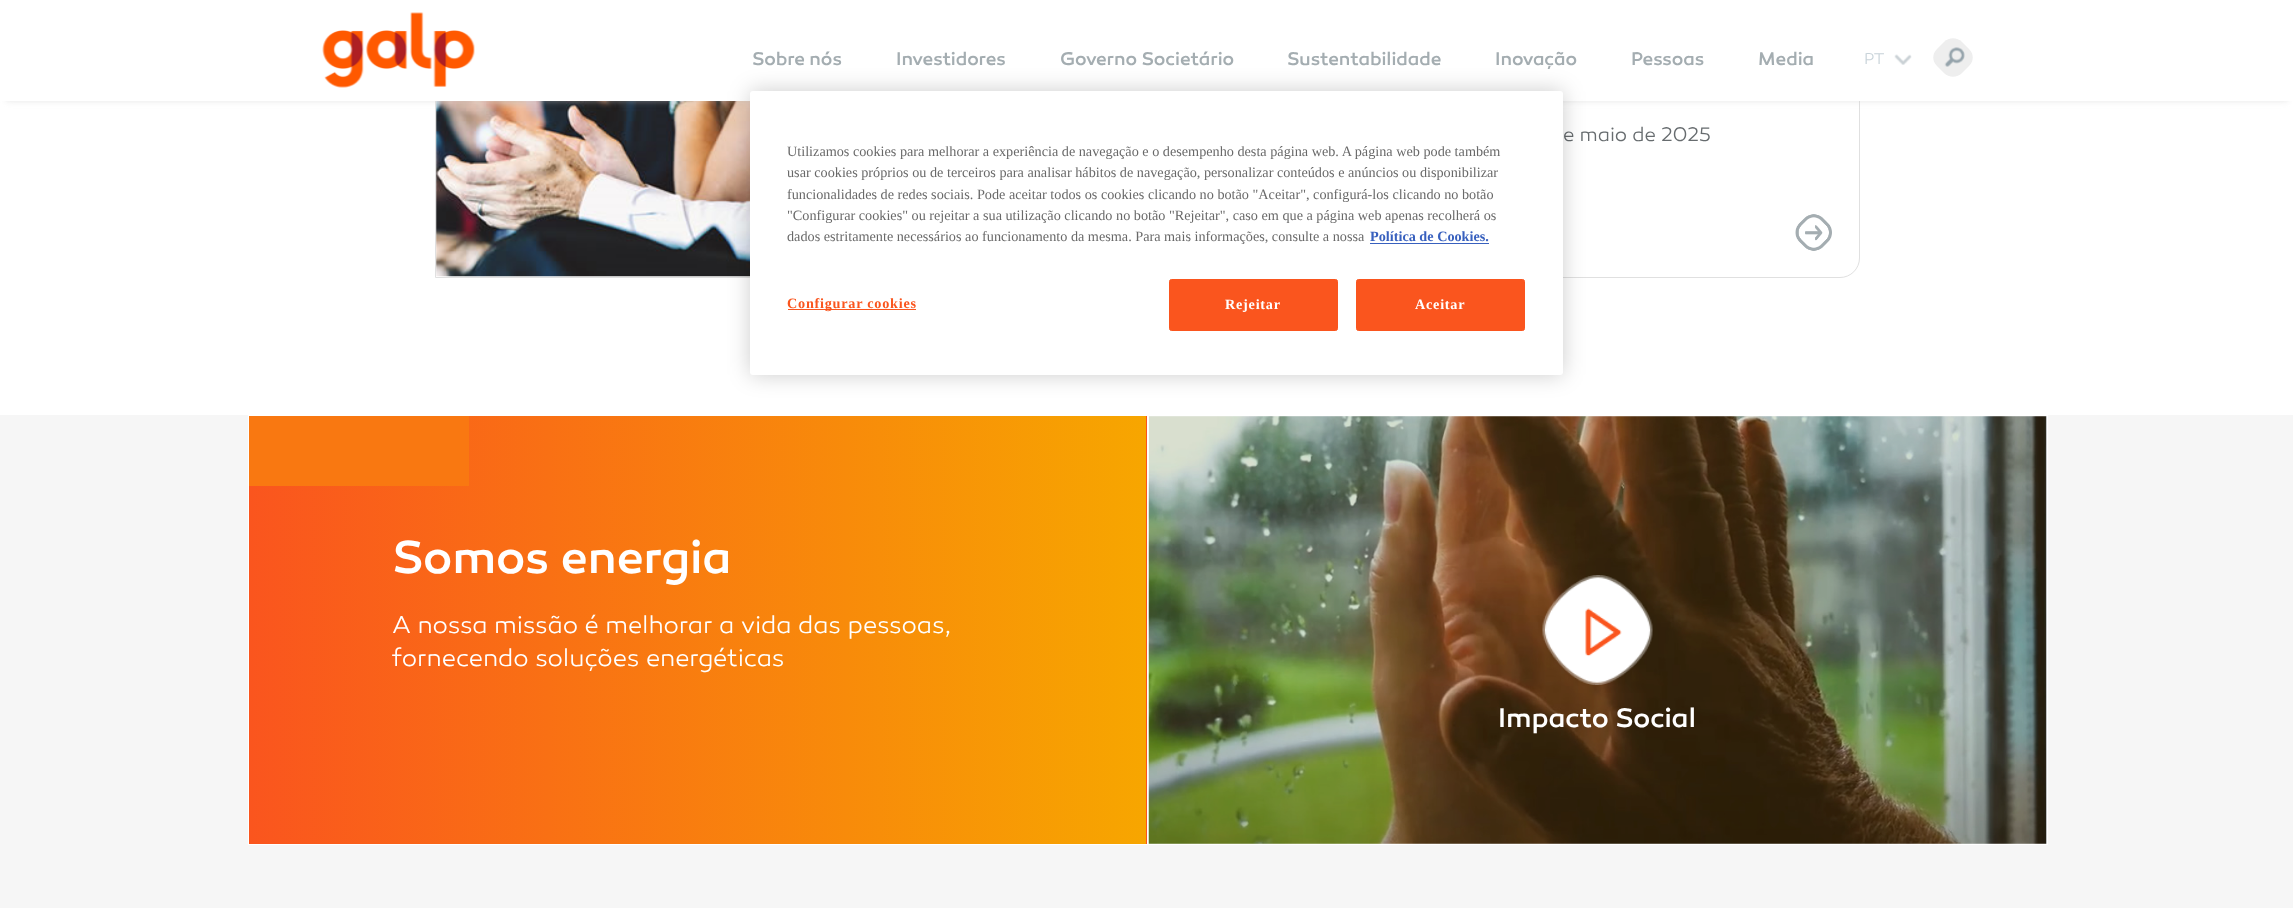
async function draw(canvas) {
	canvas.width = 2293;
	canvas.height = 908;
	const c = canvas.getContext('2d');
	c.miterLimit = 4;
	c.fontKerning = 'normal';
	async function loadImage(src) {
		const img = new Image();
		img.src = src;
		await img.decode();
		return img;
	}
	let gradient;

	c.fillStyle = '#f6f6f6';
	c.fillRect(0, 0, 2293, 908);
	c.fillStyle = '#fff';
	c.fillRect(0, 101, 2293, 314);
	c.beginPath();
	c.roundRect(435.5, 50.5, 1424, 227, [0, 0, 19.5, 0]);
	c.strokeStyle = '#e0e0e0';
	c.stroke();
	c.drawImage(await loadImage('img4.png'), 436, 101, 314, 176);
	c.fillStyle = '#cccccc80';
	c.filter = 'blur(3px)';
	c.beginPath();
	c.rect(6, 13, 2282, 88);
	c.fill();
	c.filter = 'none';
	c.fillStyle = '#fff';
	c.fillRect(0, 0, 2293, 101);
	c.drawImage(await loadImage('img1.png'), 322, 12, 153, 76);
	c.font = '500 18.75px "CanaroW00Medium"';
	c.fillStyle = '#a4adb1';
	for (const [text, x, y] of [
		['Sobre nós', 752, 65],
		['Investidores', 896, 65],
		['Governo Societário', 1060, 65],
		['Sustentabilidade', 1287, 65],
		['Inovação', 1495, 65],
		['Pessoas', 1631, 65],
		['Media', 1758, 65],
	]) {
		c.fillText(text, x, y);
	}
	c.font = '300 16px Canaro';
	c.fillStyle = '#c8d3d9';
	c.fillText('PT', 1864, 64);
	c.drawImage(await loadImage('img2.png'), 1894, 54, 18, 11);
	c.fillStyle = '#eee';
	c.beginPath();
	c.moveTo(1962, 42);
	c.lineTo(1969, 49);
	c.bezierCurveTo(1974, 54, 1974, 61, 1969, 66);
	c.lineTo(1962, 73);
	c.bezierCurveTo(1957, 78, 1949, 78, 1944, 73);
	c.lineTo(1937, 66);
	c.bezierCurveTo(1932, 61, 1932, 54, 1937, 49);
	c.lineTo(1944, 42);
	c.bezierCurveTo(1949, 37, 1957, 37, 1962, 42);
	c.closePath();
	c.fill();
	c.drawImage(await loadImage('img3.png'), 1944, 47, 21, 20);
	c.font = '300 20px Canaro';
	c.fillStyle = '#676c6f';
	c.fillText('e maio de 2025', 1563, 141);
	c.drawImage(await loadImage('img5.png'), 1795, 214, 37, 37);
	gradient = c.createLinearGradient(249, 630, 1146, 630);
	gradient.addColorStop(0, '#fa551e');
	gradient.addColorStop(1, '#f7a600');
	c.fillStyle = gradient;
	c.fillRect(249, 416, 897, 428);
	gradient = c.createLinearGradient(1146, 630, 2044, 630);
	gradient.addColorStop(0, '#fa551e');
	gradient.addColorStop(1, '#f7a600');
	c.fillStyle = gradient;
	c.fillRect(1146, 416, 1, 428);
	c.strokeStyle = '#fff';
	c.strokeRect(248.5, 415.5, 899, 429);
	c.fillStyle = '#f97811';
	c.fillRect(249, 416, 220, 70);
	c.font = '500 47.5px "CanaroW00Medium"';
	c.fillStyle = '#fff';
	c.fillText('Somos energia', 392, 573);
	c.font = '300 25px Canaro';
	c.fillText('A nossa missão é melhorar a vida das pessoas,', 392, 633);
	c.fillText('fornecendo soluções energéticas', 392, 666);
	c.strokeRect(1148.5, 415.5, 899, 429);
	c.drawImage(await loadImage('img6.png'), 1148, 416, 899, 428);
	c.drawImage(await loadImage('img7.png'), 1542, 575, 111, 110);
	c.font = '500 27.5px "CanaroW00Medium"';
	c.fillText('Impacto Social', 1498, 727);
	c.fillStyle = '#00000033';
	c.filter = 'blur(11px)';
	c.beginPath();
	c.roundRect(750, 91, 813, 284, 3);
	c.fill();
	c.filter = 'none';
	c.fillStyle = '#fff';
	c.beginPath();
	c.roundRect(750, 91, 813, 284, 3);
	c.fill();
	c.font = '14.23px Liberation Serif';
	c.fillStyle = '#696969';
	for (const [text, x, y] of [
		['Utilizamos cookies para melhorar a experiência de navegação e o desempenho desta página web. A página web pode também', 787, 156],
		['usar cookies próprios ou de terceiros para analisar hábitos de navegação, personalizar conteúdos e anúncios ou disponibilizar', 787, 177],
		['funcionalidades de redes sociais. Pode aceitar todos os cookies clicando no botão "Aceitar", configurá-los clicando no botão', 787, 199],
		['"Configurar cookies" ou rejeitar a sua utilização clicando no botão "Rejeitar", caso em que a página web apenas recolherá os', 787, 220],
		['dados estritamente necessários ao funcionamento da mesma. Para mais informações, consulte a nossa', 787, 241],
	]) {
		c.fillText(text, x, y);
	}
	c.font = 'bold 14.23px Liberation Serif';
	c.fillStyle = '#3860be';
	c.fillText('Política de Cookies.', 1370, 241);
	c.fillRect(1370, 243, 119, 1);
	c.fillStyle = '#fa551e';
	c.fillRect(788, 309, 128, 1);
	c.letterSpacing = '0.75px';
	c.fillText('Configurar cookies', 787, 308);
	c.beginPath();
	c.roundRect(1169.5, 279.5, 168, 51, 2);
	c.fill();
	c.strokeStyle = '#fa551e';
	c.stroke();
	c.fillStyle = '#fff';
	c.fillText('Rejeitar', 1225, 309);
	c.fillStyle = '#fa551e';
	c.beginPath();
	c.roundRect(1356.5, 279.5, 168, 51, 2);
	c.fill();
	c.stroke();
	c.fillStyle = '#fff';
	c.fillText('Aceitar', 1415, 309);
}

draw(document.querySelector('canvas'));
